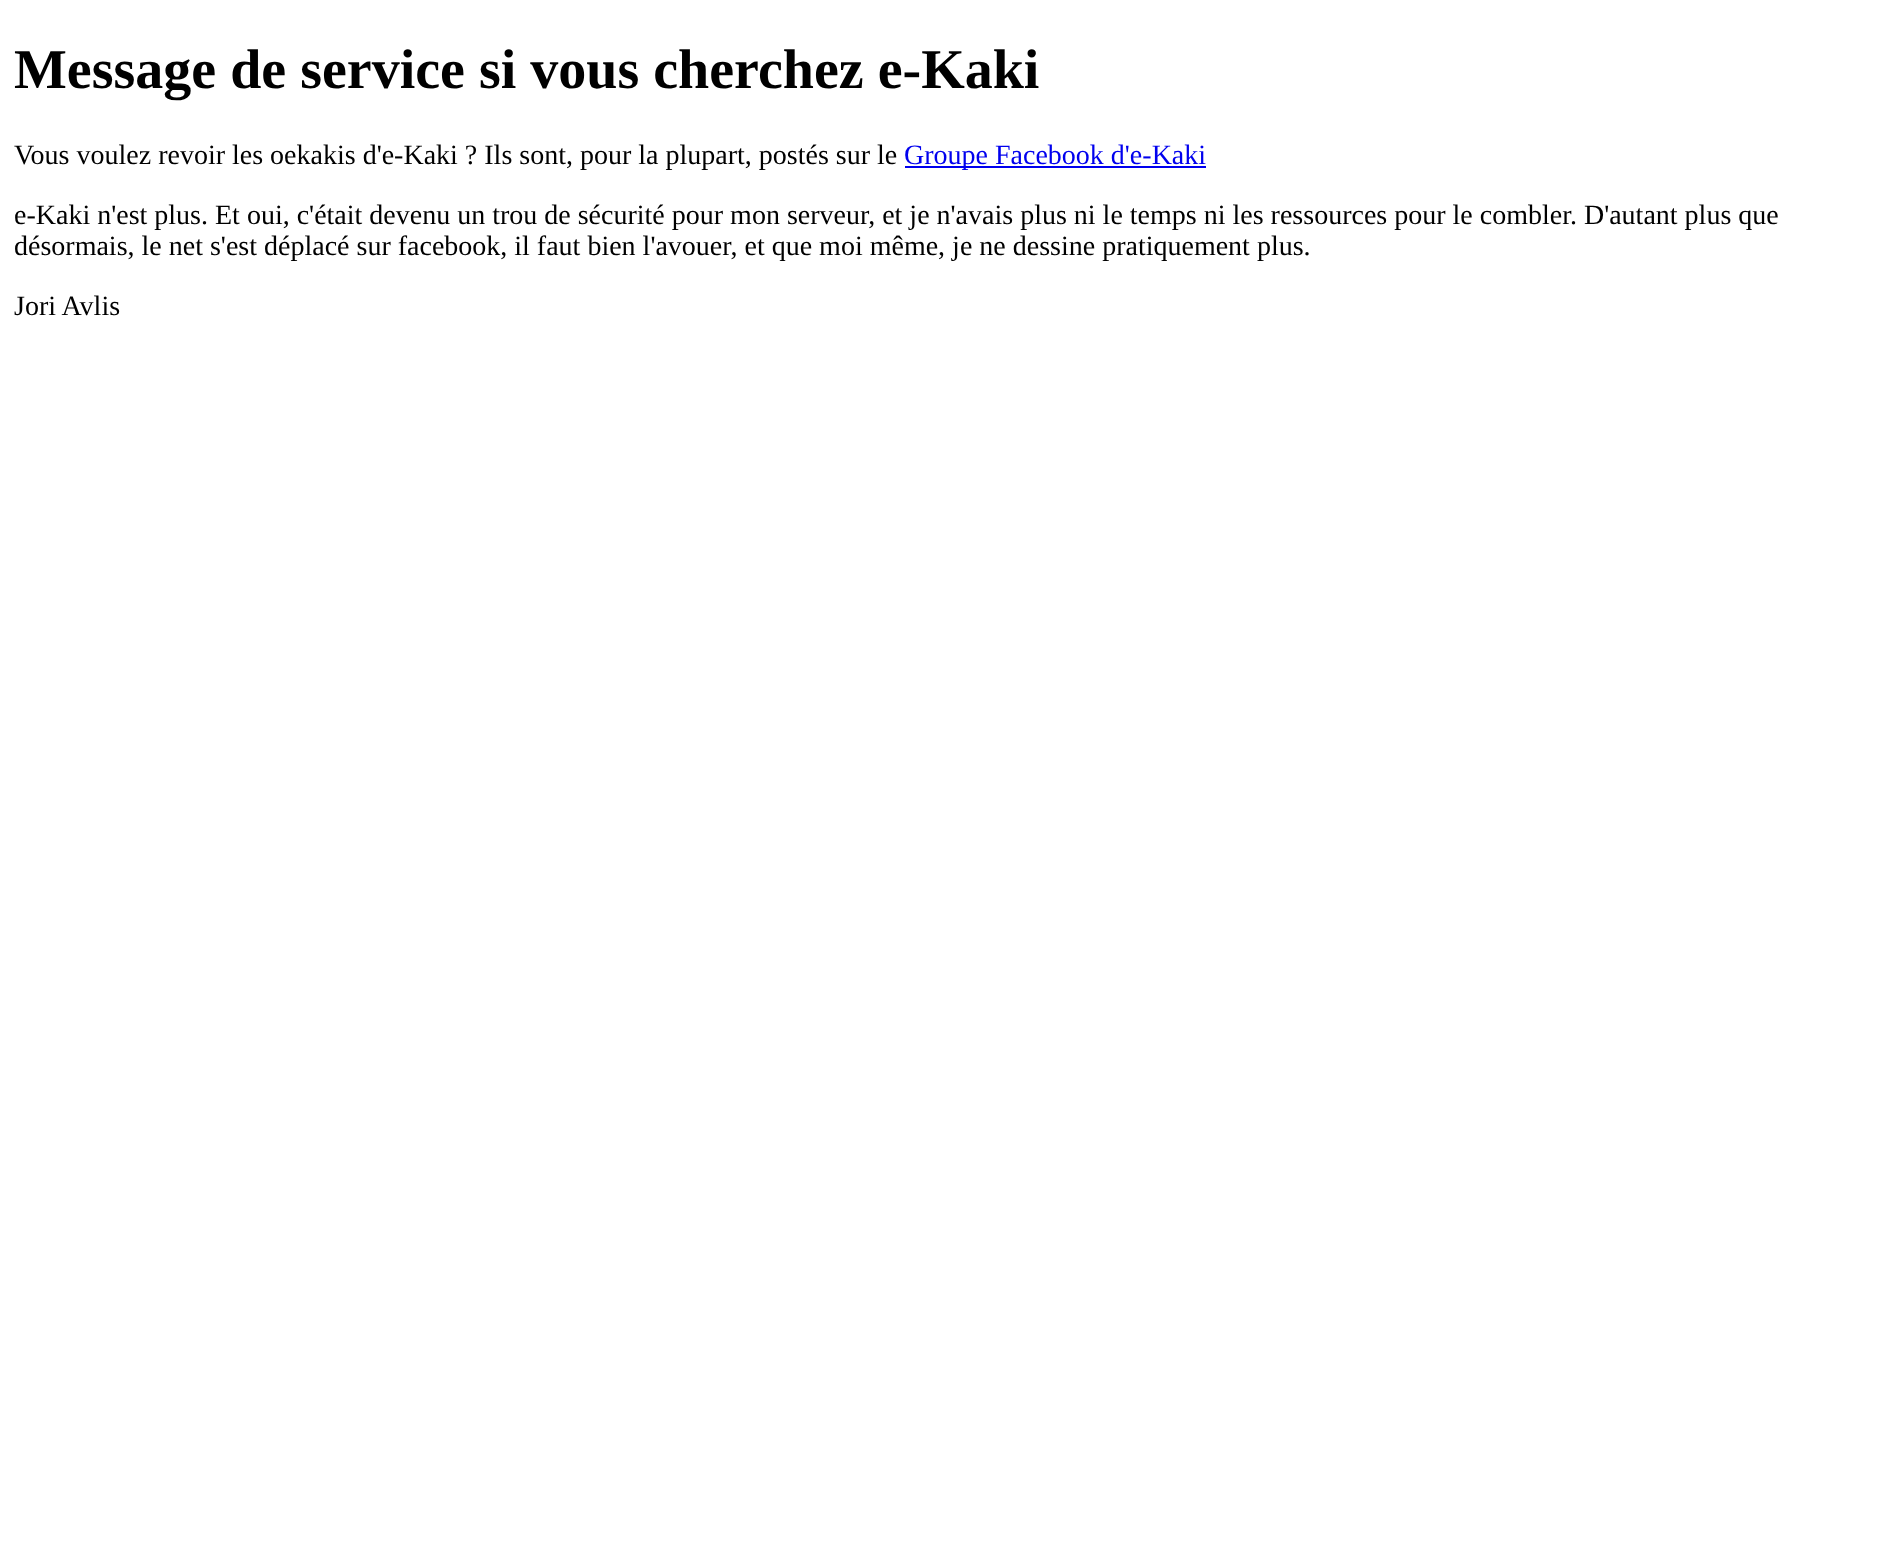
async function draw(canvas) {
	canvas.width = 1884;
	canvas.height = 1554;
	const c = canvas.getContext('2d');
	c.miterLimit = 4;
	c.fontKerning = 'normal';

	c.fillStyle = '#fff';
	c.fillRect(0, 0, 1884, 1554);
	c.font = 'bold 56px Liberation Serif';
	c.fillStyle = '#000';
	c.fillText('Message de service si vous cherchez e-Kaki', 14, 88);
	c.font = '28px Liberation Serif';
	c.fillText('Vous voulez revoir les oekakis d\'e-Kaki ? Ils sont, pour la plupart, postés sur le', 14, 164);
	c.fillStyle = '#00e';
	c.fillRect(905, 166, 301, 2);
	c.fillText('Groupe Facebook d\'e-Kaki', 904, 164);
	c.fillStyle = '#000';
	for (const [text, x, y] of [
		['e-Kaki n\'est plus. Et oui, c\'était devenu un trou de sécurité pour mon serveur, et je n\'avais plus ni le temps ni les ressources pour le combler. D\'autant plus que', 14, 224],
		['désormais, le net s\'est déplacé sur facebook, il faut bien l\'avouer, et que moi même, je ne dessine pratiquement plus.', 14, 255],
		['Jori Avlis', 14, 315],
	]) {
		c.fillText(text, x, y);
	}
}

draw(document.querySelector('canvas'));
